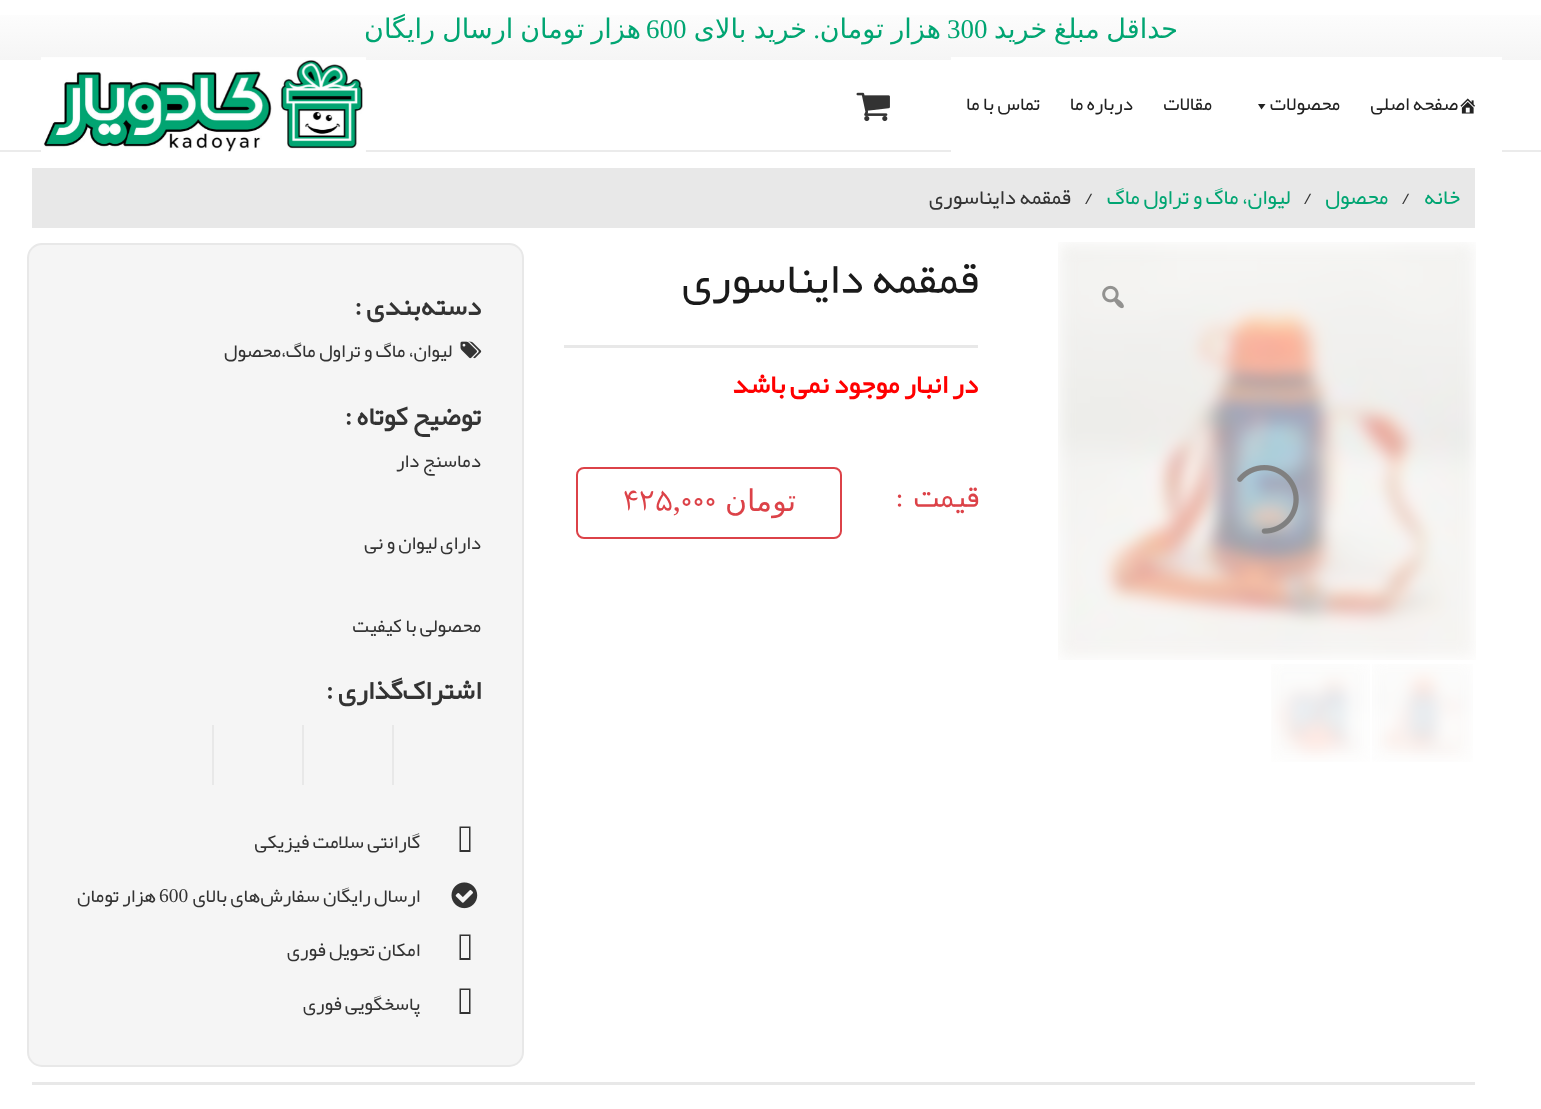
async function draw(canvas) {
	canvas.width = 1541;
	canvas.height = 1109;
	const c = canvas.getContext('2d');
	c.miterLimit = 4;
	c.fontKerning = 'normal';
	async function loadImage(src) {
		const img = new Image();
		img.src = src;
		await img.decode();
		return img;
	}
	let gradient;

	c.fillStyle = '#fff';
	c.fillRect(0, 0, 1541, 1109);
	gradient = c.createLinearGradient(771, 60, 771, 0);
	gradient.addColorStop(0, '#f5f5f5');
	gradient.addColorStop(1, '#fff');
	c.fillStyle = gradient;
	c.fillRect(0, 15, 1541, 45);
	c.wordSpacing = '-2px';
	c.direction = 'rtl';
	c.font = '27px DejaVu Sans';
	c.fillStyle = '#00a572';
	c.fillText('حداقل مبلغ خرید', 1178, 38);
	c.wordSpacing = '0px';
	c.direction = 'ltr';
	c.font = '27px Liberation Serif';
	c.fillText('300', 947, 38);
	c.wordSpacing = '-1px';
	c.direction = 'rtl';
	c.font = '27px DejaVu Sans';
	c.fillText('هزار تومان', 941, 38);
	c.wordSpacing = '0px';
	c.font = '27px Liberation Serif';
	c.fillText('.', 820, 38);
	c.wordSpacing = '-1px';
	c.font = '27px DejaVu Sans';
	c.fillText('خرید بالای', 807, 38);
	c.wordSpacing = '0px';
	c.direction = 'ltr';
	c.font = '27px Liberation Serif';
	c.fillText('600', 646, 38);
	c.wordSpacing = '-1.5px';
	c.direction = 'rtl';
	c.font = '27px DejaVu Sans';
	c.fillText('هزار تومان ارسال رایگان', 641, 38);
	c.fillStyle = '#ebebeb';
	c.fillRect(0, 150, 1541, 2);
	c.fillStyle = '#fff';
	c.fillRect(951, 57, 551, 95);
	c.drawImage(await loadImage('img1.png'), 1460, 98, 15, 16);
	c.wordSpacing = '0px';
	c.font = '19.5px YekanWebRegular';
	c.fillStyle = '#222';
	c.fillText('صفحه اصلی', 1458, 110);
	c.fillText('محصولات', 1340, 110);
	c.beginPath();
	c.moveTo(1265.5, 104);
	c.lineTo(1261.5, 109.5);
	c.lineTo(1258, 104);
	c.closePath();
	c.fill();
	for (const [text, x, y] of [
		['مقالات', 1212, 110],
		['درباره ما', 1133, 110],
		['تماس با ما', 1040, 110],
	]) {
		c.fillText(text, x, y);
	}
	c.drawImage(await loadImage('img2.png'), 856, 92, 34, 30);
	c.drawImage(await loadImage('img3.png'), 41, 57, 325, 95);
	c.fillStyle = '#e8e8e8';
	c.fillRect(32, 168, 1443, 60);
	c.font = '21.5px YekanWebRegular';
	c.fillStyle = '#00a572';
	c.fillText('خانه', 1460, 204);
	c.direction = 'ltr';
	c.fillStyle = '#333';
	c.fillText('/', 1401, 204);
	c.direction = 'rtl';
	c.fillStyle = '#00a572';
	c.fillText('محصول', 1388, 204);
	c.direction = 'ltr';
	c.fillStyle = '#333';
	c.fillText('/', 1303, 204);
	c.direction = 'rtl';
	c.fillStyle = '#00a572';
	c.fillText('لیوان، ماگ و تراول ماگ', 1290, 204);
	c.direction = 'ltr';
	c.fillStyle = '#333';
	c.fillText('/', 1084, 204);
	c.direction = 'rtl';
	c.fillText('قمقمه دایناسوری', 1071, 204);
	c.drawImage(await loadImage('img4.png'), 1058, 242, 418, 418);
	c.drawImage(await loadImage('img5.png'), 1102, 285, 22, 24);
	c.drawImage(await loadImage('img6.png'), 1372, 664, 101, 98);
	c.drawImage(await loadImage('img7.png'), 1271, 664, 99, 98);
	c.drawImage(await loadImage('img8.png'), 1237, 465, 62, 69);
	c.font = '45px YekanWebRegular';
	c.fillStyle = '#1a1a1a';
	c.fillText('قمقمه دایناسوری', 979, 293);
	c.fillStyle = '#e8e8e8';
	c.fillRect(564, 345, 414, 3);
	c.font = 'bold 27px YekanWebRegular';
	c.fillStyle = '#f00';
	c.fillText('در انبار موجود نمی باشد', 978, 393);
	c.font = '30px YekanWebRegular';
	c.fillStyle = '#dc4248';
	c.fillText('قیمت  :', 979, 507);
	c.beginPath();
	c.roundRect(577, 468, 264, 70, 7);
	c.strokeStyle = '#dc4248';
	c.lineWidth = 2;
	c.stroke();
	c.font = '30px DejaVu Sans';
	c.fillText('تومان', 796, 511);
	c.direction = 'ltr';
	c.font = '30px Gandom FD';
	c.fillText('425,000', 623, 511);
	c.fillStyle = '#f5f5f5';
	c.beginPath();
	c.roundRect(28, 244, 495, 822, 14);
	c.fill();
	c.strokeStyle = '#e8e8e8';
	c.stroke();
	c.direction = 'rtl';
	c.font = 'bold 27px YekanWebRegular';
	c.fillStyle = '#333';
	c.fillText('دسته‌بندی :', 481, 315);
	c.drawImage(await loadImage('img9.png'), 460, 341, 22, 18);
	c.font = '19.5px YekanWebRegular';
	c.fillText('لیوان، ماگ و تراول ماگ', 452, 357);
	c.direction = 'ltr';
	c.fillText('،', 281, 357);
	c.direction = 'rtl';
	c.fillText('محصول', 281, 357);
	c.font = 'bold 27px YekanWebRegular';
	c.fillText('توضیح کوتاه :', 481, 425);
	c.font = '19.5px YekanWebRegular';
	for (const [text, x, y] of [
		['دماسنج دار', 481, 467],
		['دارای لیوان و نی', 481, 549],
		['محصولی با کیفیت', 481, 632],
	]) {
		c.fillText(text, x, y);
	}
	c.font = 'bold 27px YekanWebRegular';
	c.fillText('اشتراک‌گذاری :', 481, 699);
	for (const [x, y, w, h, color] of [
		[392, 725, 2, 60, '#e8e8e8'],
		[302, 725, 2, 60, '#e8e8e8'],
		[212, 725, 2, 60, '#e8e8e8'],
	]) {
		c.fillStyle = color;
		c.fillRect(x, y, w, h);
	}
	c.fillStyle = '#333';
	c.beginPath();
	c.moveTo(461, 850);
	c.lineTo(461, 828);
	c.lineTo(469, 828);
	c.lineTo(469, 850);
	c.closePath();
	c.moveTo(459.5, 852);
	c.lineTo(470.5, 852);
	c.lineTo(470.5, 826.5);
	c.lineTo(459.5, 826.5);
	c.closePath();
	c.fill();
	c.font = '19.5px YekanWebRegular';
	c.fillText('گارانتی سلامت فیزیکی', 420, 848);
	c.drawImage(await loadImage('img10.png'), 451, 882, 27, 27);
	c.fillText('ارسال رایگان سفارش‌های بالای', 420, 902);
	c.direction = 'ltr';
	c.font = '19.5px Liberation Serif';
	c.fillText('600', 159, 902);
	c.direction = 'rtl';
	c.font = '19.5px YekanWebRegular';
	c.fillText('هزار تومان', 156, 902);
	c.beginPath();
	c.moveTo(461, 958);
	c.lineTo(461, 936);
	c.lineTo(469, 936);
	c.lineTo(469, 958);
	c.closePath();
	c.moveTo(459.5, 960);
	c.lineTo(470.5, 960);
	c.lineTo(470.5, 934.5);
	c.lineTo(459.5, 934.5);
	c.closePath();
	c.fill();
	c.fillText('امکان تحویل فوری', 420, 956);
	c.beginPath();
	c.moveTo(461, 1012);
	c.lineTo(461, 990);
	c.lineTo(469, 990);
	c.lineTo(469, 1012);
	c.closePath();
	c.moveTo(459.5, 1014);
	c.lineTo(470.5, 1014);
	c.lineTo(470.5, 988.5);
	c.lineTo(459.5, 988.5);
	c.closePath();
	c.fill();
	c.fillText('پاسخگویی فوری', 420, 1010);
	c.fillStyle = '#e8e8e8';
	c.fillRect(32, 1082, 1443, 3);
}

draw(document.querySelector('canvas'));
